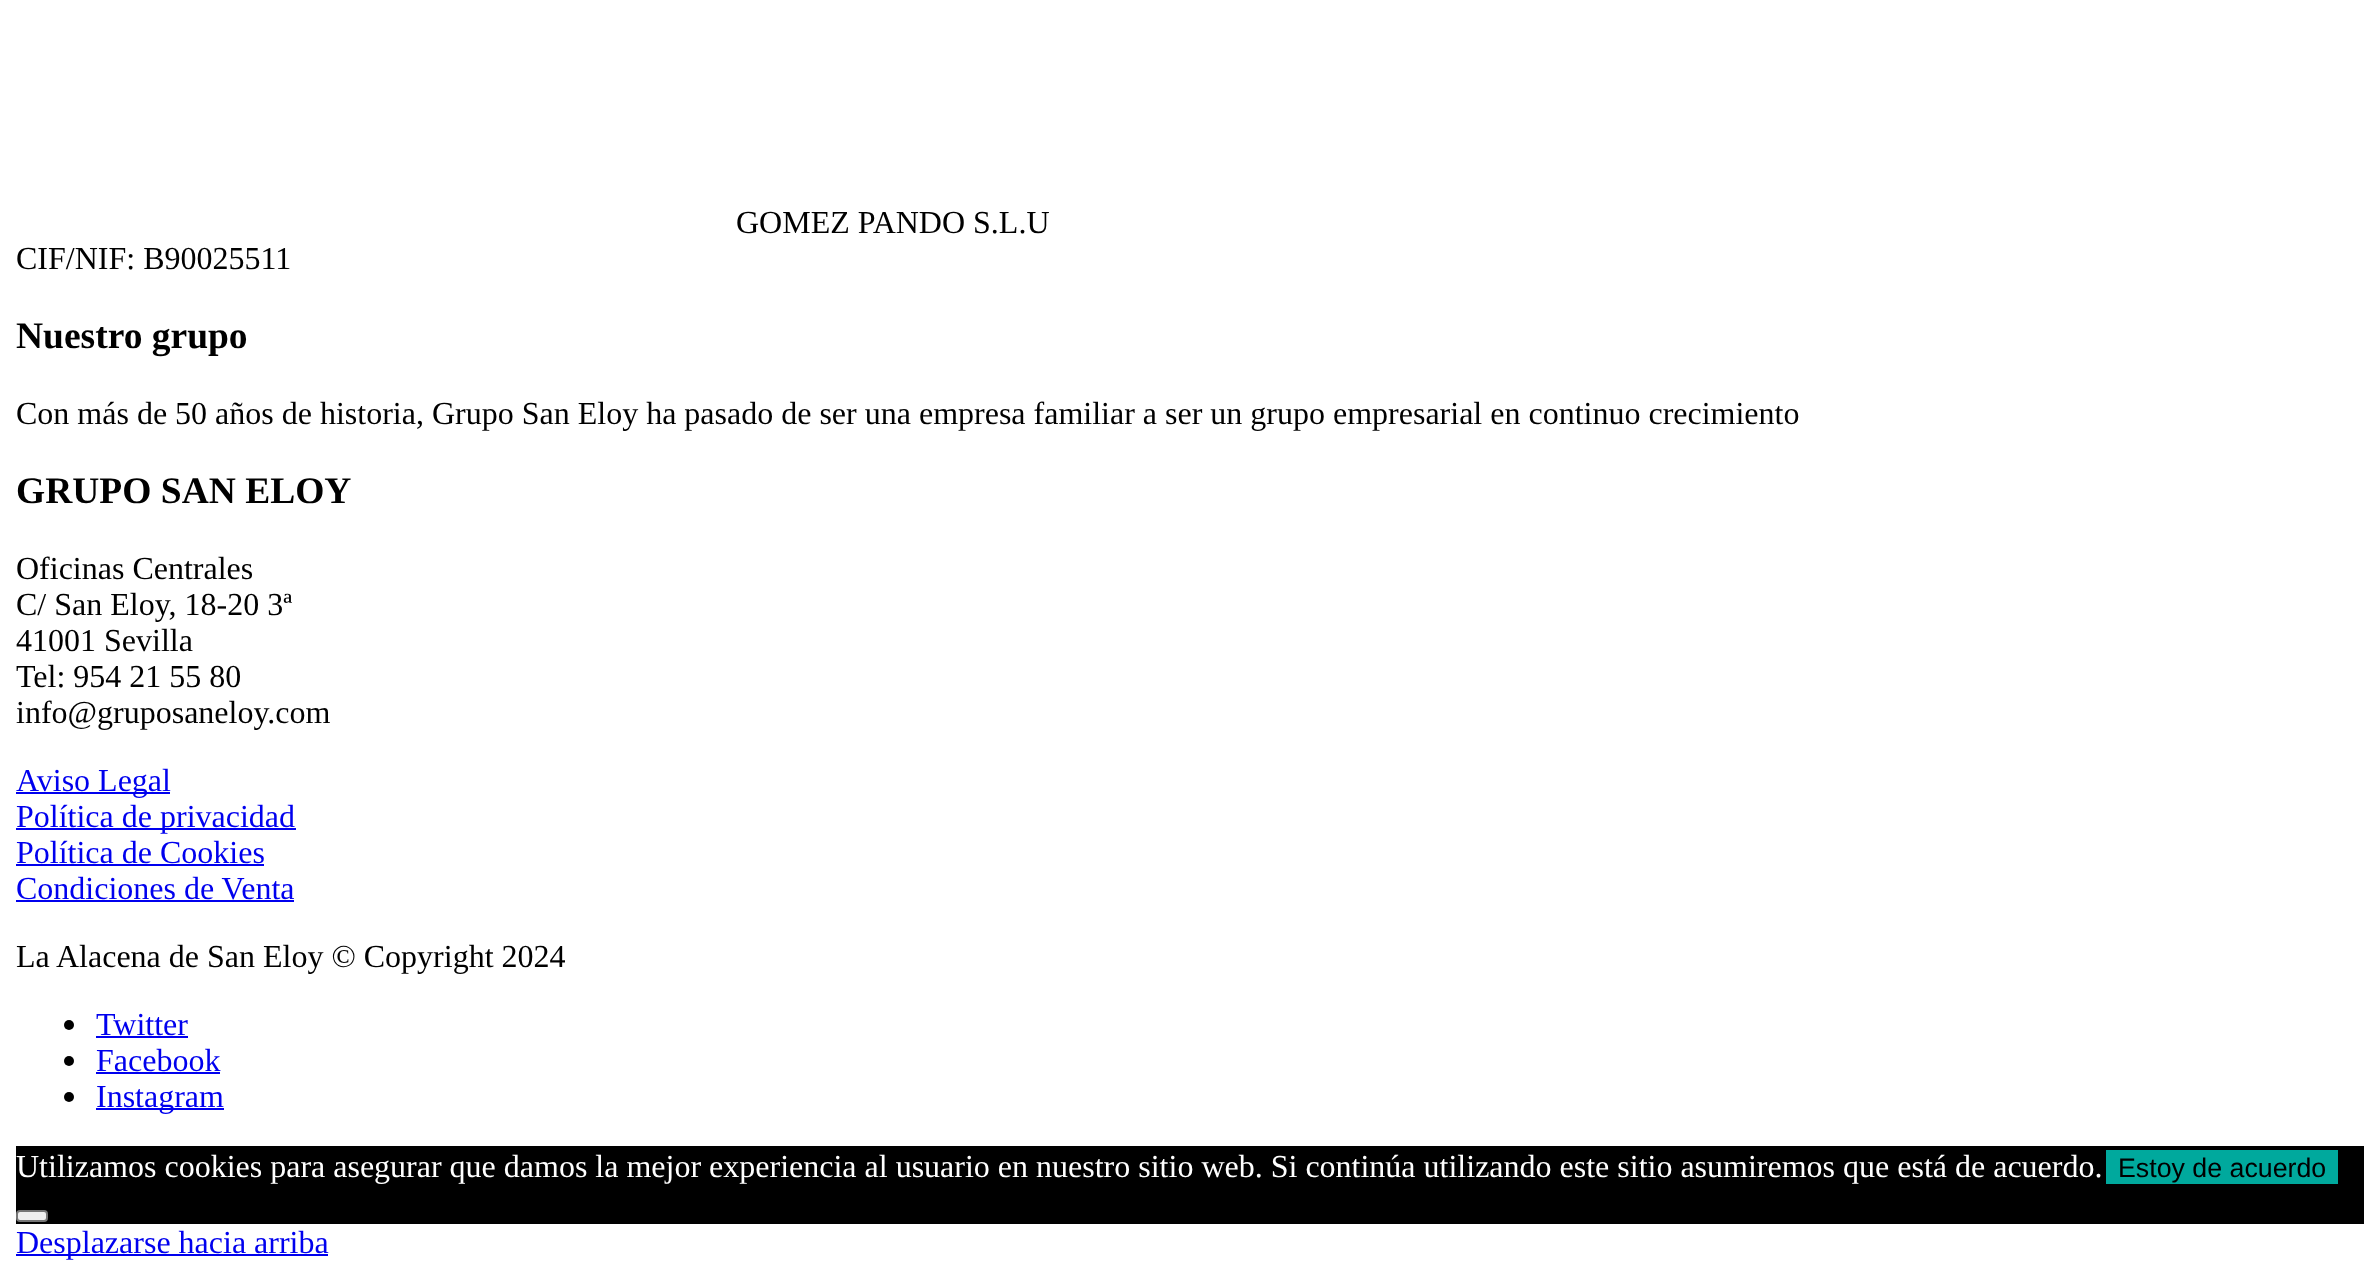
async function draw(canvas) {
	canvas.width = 2379;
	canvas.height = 1275;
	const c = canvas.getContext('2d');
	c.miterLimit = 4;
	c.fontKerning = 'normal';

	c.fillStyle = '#fff';
	c.fillRect(0, 0, 2379, 1275);
	c.font = '32px Liberation Serif';
	c.fillStyle = '#000';
	c.fillText('GOMEZ PANDO S.L.U', 736, 233);
	c.fillText('CIF/NIF: B90025511', 16, 269);
	c.font = 'bold 37.5px Liberation Serif';
	c.fillText('Nuestro grupo', 16, 348);
	c.font = '32px Liberation Serif';
	c.fillText('Con más de 50 años de historia, Grupo San Eloy ha pasado de ser una empresa familiar a ser un grupo empresarial en continuo crecimiento', 16, 424);
	c.font = 'bold 37.5px Liberation Serif';
	c.fillText('GRUPO SAN ELOY', 16, 503);
	c.font = '32px Liberation Serif';
	for (const [text, x, y] of [
		['Oficinas Centrales', 16, 579],
		['C/ San Eloy, 18-20 3ª', 16, 615],
		['41001 Sevilla', 16, 651],
		['Tel: 954 21 55 80', 16, 687],
		['info@gruposaneloy.com', 16, 723],
	]) {
		c.fillText(text, x, y);
	}
	c.fillStyle = '#00e';
	c.fillRect(16, 792, 154, 2);
	c.fillText('Aviso Legal', 16, 791);
	c.fillRect(16, 828, 280, 2);
	c.fillText('Política de privacidad', 16, 827);
	c.fillText('Política de Cookies', 16, 863);
	c.fillRect(16, 864, 248, 2);
	c.fillText('Condiciones de Venta', 16, 899);
	c.fillRect(16, 900, 278, 2);
	c.fillStyle = '#000';
	c.fillText('La Alacena de San Eloy © Copyright 2024', 16, 967);
	c.beginPath();
	c.arc(69, 1025, 5, 0, 2 * Math.PI);
	c.fill();
	c.fillStyle = '#00e';
	c.fillText('Twitter', 96, 1035);
	c.fillRect(96, 1036, 92, 2);
	c.fillStyle = '#000';
	c.beginPath();
	c.arc(69, 1061, 5, 0, 2 * Math.PI);
	c.fill();
	c.fillStyle = '#00e';
	c.fillText('Facebook', 96, 1071);
	c.fillRect(96, 1072, 124, 2);
	c.fillStyle = '#000';
	c.beginPath();
	c.arc(69, 1097, 5, 0, 2 * Math.PI);
	c.fill();
	c.fillStyle = '#00e';
	c.fillRect(96, 1108, 128, 2);
	c.fillText('Instagram', 96, 1107);
	c.fillStyle = '#000';
	c.fillRect(16, 1146, 2348, 78);
	c.fillStyle = '#fff';
	c.fillText('Utilizamos cookies para asegurar que damos la mejor experiencia al usuario en nuestro sitio web. Si continúa utilizando este sitio asumiremos que está de acuerdo.', 16, 1177);
	c.fillStyle = '#00a99d';
	c.fillRect(2106, 1150, 232, 34);
	c.font = '26.75px Liberation Sans';
	c.fillStyle = '#000';
	c.fillText('Estoy de acuerdo', 2118, 1177);
	c.fillStyle = '#efefef';
	c.beginPath();
	c.roundRect(17, 1211, 30, 10, 3);
	c.fill();
	c.strokeStyle = '#767676';
	c.lineWidth = 2;
	c.stroke();
	c.fillStyle = '#00e';
	c.fillRect(16, 1254, 312, 2);
	c.font = '32px Liberation Serif';
	c.fillText('Desplazarse hacia arriba', 16, 1253);
}

draw(document.querySelector('canvas'));
